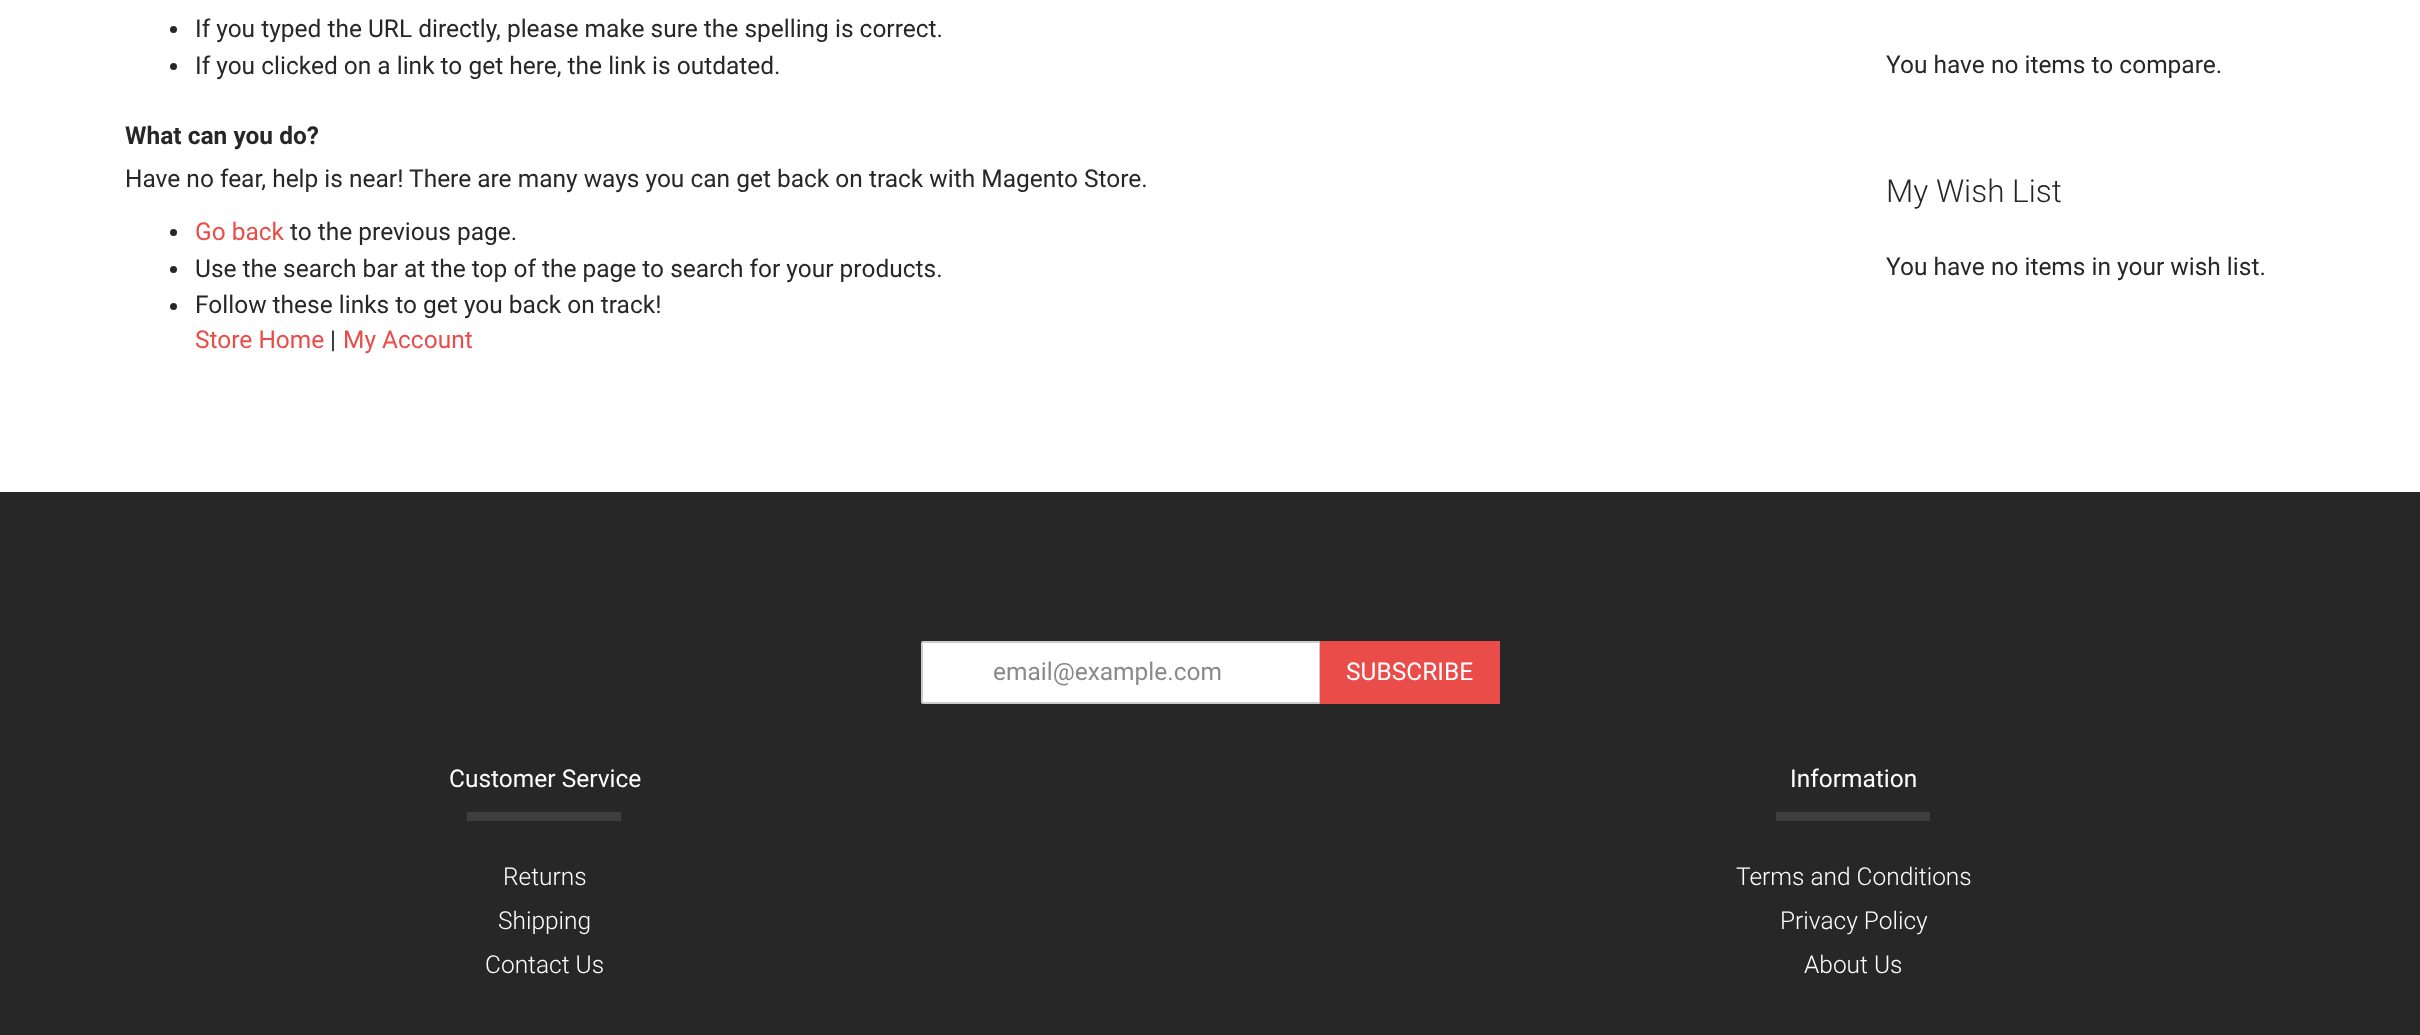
async function draw(canvas) {
	canvas.width = 2420;
	canvas.height = 1035;
	const c = canvas.getContext('2d');
	c.miterLimit = 4;
	c.fontKerning = 'normal';

	c.fillStyle = '#fff';
	c.fillRect(0, 0, 2420, 1035);
	c.fillStyle = '#272727';
	c.beginPath();
	c.arc(173.5, 29.5, 3.5, 0, 2 * Math.PI);
	c.fill();
	c.font = '24.5px Roboto';
	c.fillText('If you typed the URL directly, please make sure the spelling is correct.', 195, 37);
	c.beginPath();
	c.arc(173.5, 66.5, 3.5, 0, 2 * Math.PI);
	c.fill();
	c.fillText('If you clicked on a link to get here, the link is outdated.', 195, 74);
	c.font = 'bold 24.5px Roboto';
	c.fillText('What can you do?', 125, 144);
	c.font = '24.5px Roboto';
	c.fillText('Have no fear, help is near! There are many ways you can get back on track with Magento Store.', 125, 187);
	c.beginPath();
	c.arc(173.5, 232.5, 3.5, 0, 2 * Math.PI);
	c.fill();
	c.fillStyle = '#ea4c49';
	c.fillText('Go back', 195, 240);
	c.fillStyle = '#272727';
	c.fillText('to the previous page.', 290, 240);
	c.beginPath();
	c.arc(173.5, 269.5, 3.5, 0, 2 * Math.PI);
	c.fill();
	c.fillText('Use the search bar at the top of the page to search for your products.', 195, 277);
	c.beginPath();
	c.arc(173.5, 306.5, 3.5, 0, 2 * Math.PI);
	c.fill();
	c.fillText('Follow these links to get you back on track!', 195, 313);
	c.fillStyle = '#ea4c49';
	c.fillText('Store Home', 195, 348);
	c.fillStyle = '#272727';
	c.fillText('|', 330, 348);
	c.fillStyle = '#ea4c49';
	c.fillText('My Account', 343, 348);
	c.fillStyle = '#272727';
	c.fillText('You have no items to compare.', 1886, 73);
	c.font = '300 31.5px Roboto';
	c.fillText('My Wish List', 1886, 202);
	c.font = '24.5px Roboto';
	c.fillText('You have no items in your wish list.', 1886, 275);
	c.fillRect(0, 492, 2420, 543);
	c.fillStyle = '#fff';
	c.beginPath();
	c.roundRect(922, 642, 398, 61, 1);
	c.fill();
	c.strokeStyle = '#ccc';
	c.lineWidth = 2;
	c.stroke();
	c.fillStyle = '#898989';
	c.fillText('email@example.com', 993, 680);
	c.fillStyle = '#ea4c49';
	c.fillRect(1320, 641, 180, 63);
	c.fillStyle = '#fff';
	c.fillText('SUBSCRIBE', 1346, 680);
	c.fillText('Customer Service', 449, 787);
	c.fillStyle = '#3e3e3e';
	c.fillRect(467, 812, 154, 9);
	c.font = '300 24.5px Roboto';
	c.fillStyle = '#fff';
	for (const [text, x, y] of [
		['Returns', 503, 885],
		['Shipping', 498, 929],
		['Contact Us', 485, 973],
	]) {
		c.fillText(text, x, y);
	}
	c.font = '24.5px Roboto';
	c.fillText('Information', 1790, 787);
	c.fillStyle = '#3e3e3e';
	c.fillRect(1776, 812, 154, 9);
	c.font = '300 24.5px Roboto';
	c.fillStyle = '#fff';
	for (const [text, x, y] of [
		['Terms and Conditions', 1736, 885],
		['Privacy Policy', 1780, 929],
		['About Us', 1804, 973],
	]) {
		c.fillText(text, x, y);
	}
}

draw(document.querySelector('canvas'));
